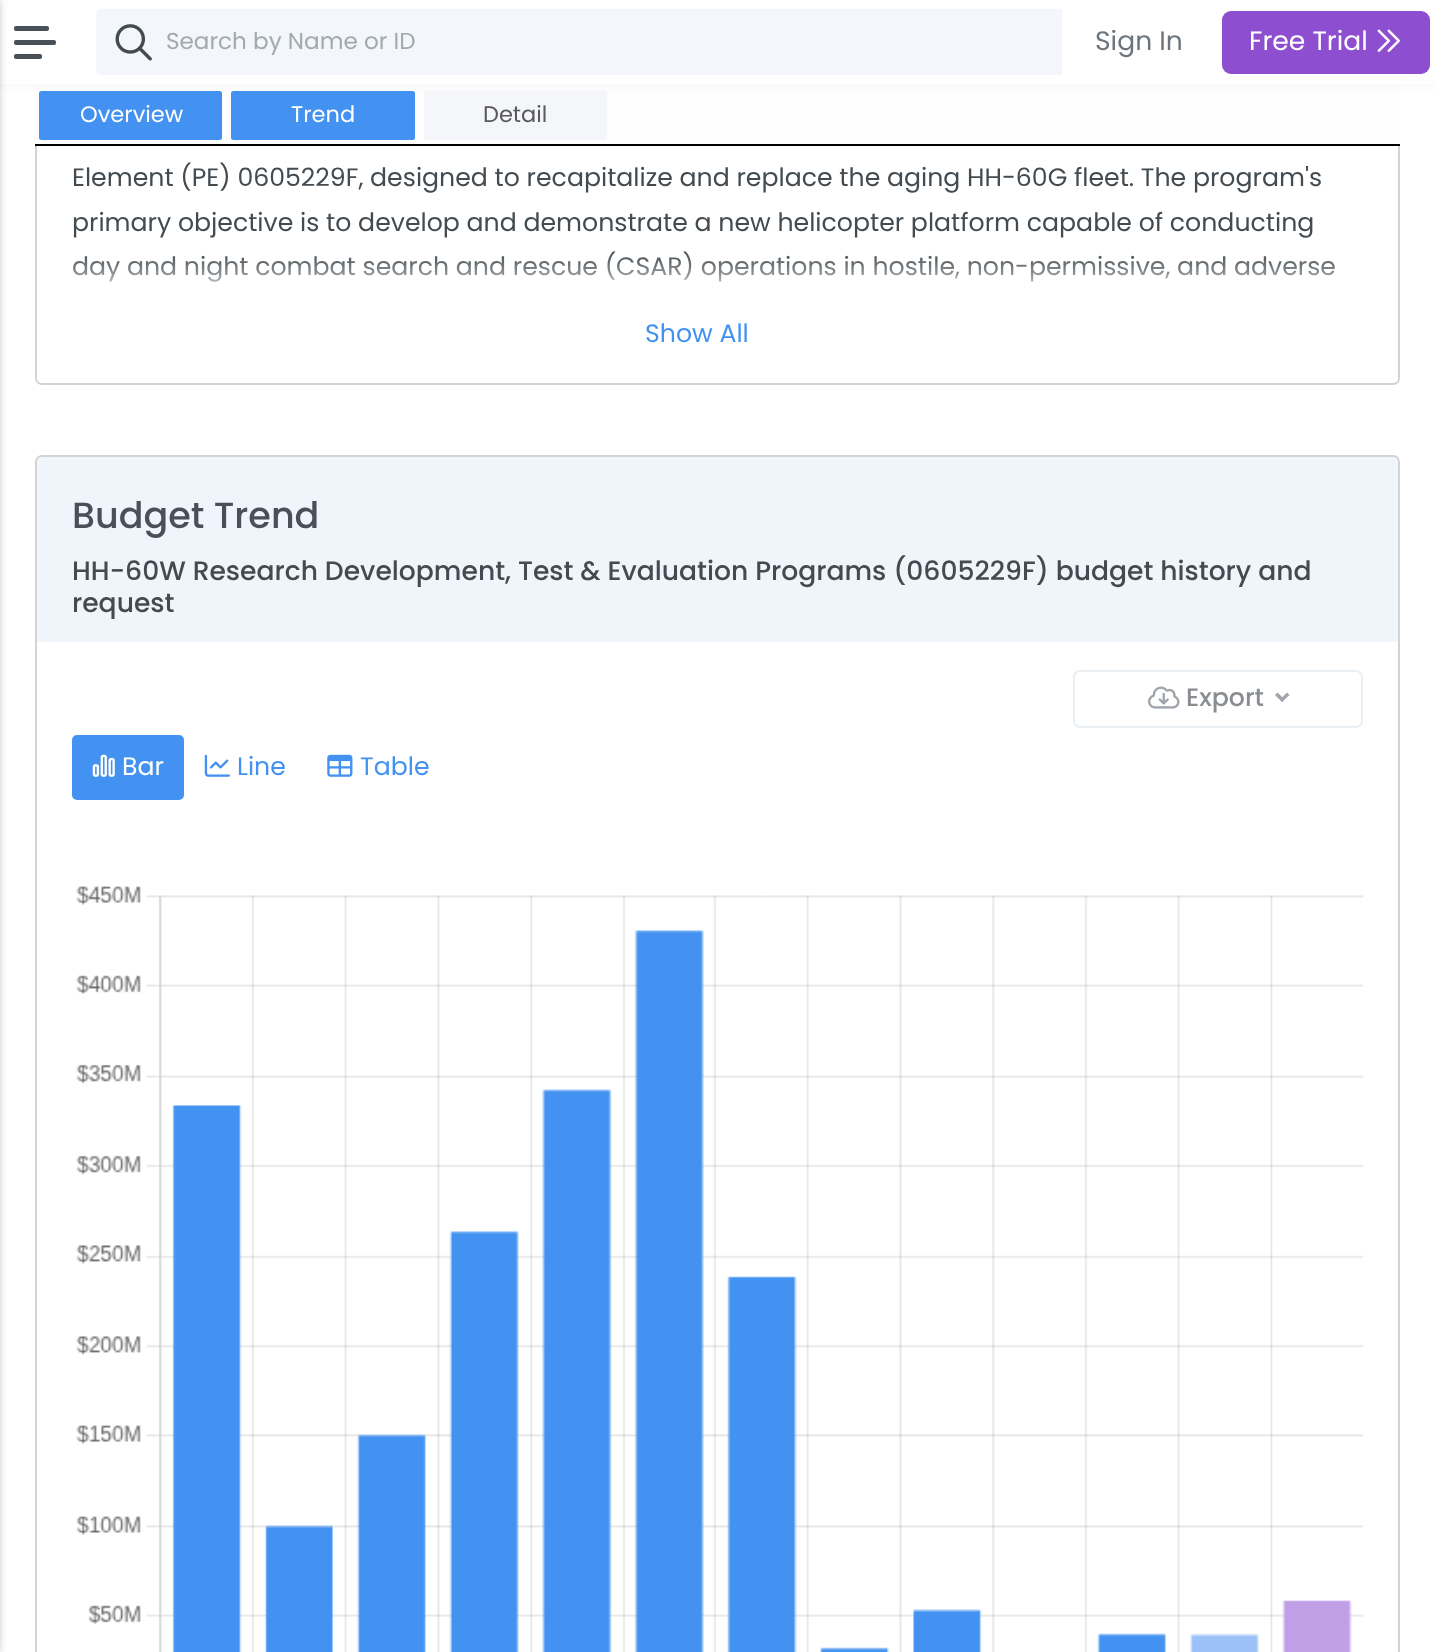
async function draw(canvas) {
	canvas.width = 1435;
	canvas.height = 1652;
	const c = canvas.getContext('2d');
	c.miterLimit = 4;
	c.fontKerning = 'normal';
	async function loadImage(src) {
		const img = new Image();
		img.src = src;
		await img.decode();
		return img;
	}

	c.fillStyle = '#fff';
	c.fillRect(0, 0, 1435, 1652);
	c.beginPath();
	c.roundRect(36, -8, 1363, 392, 6);
	c.strokeStyle = '#d3d3d3';
	c.lineWidth = 2;
	c.stroke();
	c.fillStyle = '#fefefe';
	c.fillRect(35, 84, 1365, 60);
	c.fillStyle = '#4392f1';
	c.beginPath();
	c.roundRect(40, 92, 181, 47, 1.5);
	c.fill();
	c.strokeStyle = '#4392f1';
	c.stroke();
	c.beginPath();
	c.roundRect(232, 92, 182, 47, 1.5);
	c.fill();
	c.stroke();
	c.fillStyle = '#f4f6f9';
	c.beginPath();
	c.roundRect(424, 91, 183, 49, 2.5);
	c.fill();
	c.fillStyle = '#2930420d';
	c.filter = 'blur(7px)';
	c.beginPath();
	c.rect(0, 0, 1435, 84);
	c.fill();
	c.filter = 'none';
	c.fillStyle = '#fff';
	c.fillRect(0, 0, 1435, 84);
	c.fillStyle = '#29304240';
	c.filter = 'blur(3.5px)';
	c.beginPath();
	c.rect(-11, 0, 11, 1652);
	c.fill();
	c.filter = 'none';
	c.fillStyle = '#495057';
	c.beginPath();
	c.roundRect(14, 40, 42, 5, 2);
	c.fill();
	c.beginPath();
	c.roundRect(14, 26, 35, 5, 2);
	c.fill();
	c.beginPath();
	c.roundRect(14, 54, 28, 5, 2);
	c.fill();
	c.fillStyle = '#f3f6fb';
	c.beginPath();
	c.roundRect(96, 9, 1050, 66, 5);
	c.fill();
	c.drawImage(await loadImage('img1.png'), 115, 24, 37, 37);
	c.font = '23.1px Poppins';
	c.fillStyle = '#a2a9af';
	c.fillText('Search by Name or ID', 166, 49);
	c.fillStyle = '#fff';
	c.fillRect(1062, 9, 84, 66);
	c.font = '26.6px Poppins';
	c.fillStyle = '#6c757d';
	c.fillText('Sign In', 1095, 50);
	c.fillStyle = '#8d4fcf';
	c.beginPath();
	c.roundRect(1222, 11, 208, 63, 9);
	c.fill();
	c.fillStyle = '#fff';
	c.fillText('Free Trial', 1249, 50);
	c.drawImage(await loadImage('img2.png'), 1377, 29, 23, 23);
	c.fillStyle = '#000';
	c.fillRect(35, 144, 1365, 2);
	c.font = '22.5px Poppins';
	c.fillStyle = '#fff';
	c.fillText('Overview', 80, 122);
	c.fillText('Trend', 291, 122);
	c.fillStyle = '#595959';
	c.fillText('Detail', 483, 122);
	c.font = '25.2px Poppins';
	c.fillStyle = '#434b50';
	for (const [text, x, y] of [
		['Element (PE) 0605229F, designed to recapitalize and replace the aging HH-60G fleet. The program\'s', 72, 186],
		['primary objective is to develop and demonstrate a new helicopter platform capable of conducting', 72, 231],
		['day and night combat search and rescue (CSAR) operations in hostile, non-permissive, and adverse', 72, 275],
	]) {
		c.fillText(text, x, y);
	}
	c.beginPath();
	c.roundRect(36, 456, 1363, 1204, 6);
	c.strokeStyle = '#d3d3d3';
	c.stroke();
	c.fillStyle = '#f0f4fb';
	c.beginPath();
	c.roundRect(37, 457, 1361, 185, [7, 7, 0, 0]);
	c.fill();
	c.save();
	c.beginPath();
	c.roundRect(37, -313, 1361, 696, 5);
	c.clip();
	c.fillStyle = '#fff';
	c.filter = 'blur(17.5px)';
	c.beginPath();
	c.rect(-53, 278, 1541, 158);
	c.fill();
	c.filter = 'none';
	c.restore();
	c.fillStyle = '#fff';
	c.beginPath();
	c.roundRect(37, 331, 1361, 52, [0, 0, 5, 5]);
	c.fill();
	c.fillStyle = '#4392f1';
	c.fillText('Show All', 645, 342);
	c.font = '500 36.5px Poppins';
	c.fillStyle = '#495057';
	c.fillText('Budget Trend', 72, 528);
	c.font = '500 26.6px Poppins';
	c.fillStyle = '#434b50';
	c.fillText('HH-60W Research Development, Test & Evaluation Programs (0605229F) budget history and', 72, 580);
	c.fillText('request', 72, 612);
	c.beginPath();
	c.roundRect(1074, 671, 288, 56, 6);
	c.strokeStyle = '#eaeff3';
	c.stroke();
	c.drawImage(await loadImage('img3.png'), 1148, 686, 32, 23);
	c.font = '500 25.2px Poppins';
	c.fillStyle = '#898d92';
	c.fillText('Export', 1186, 706);
	c.fillStyle = '#9fa5ab';
	c.beginPath();
	c.moveTo(1287, 692.5);
	c.lineTo(1289.5, 695);
	c.lineTo(1282, 702);
	c.lineTo(1280, 699.5);
	c.closePath();
	c.fill();
	c.beginPath();
	c.moveTo(1277.5, 692.5);
	c.lineTo(1284.5, 699.5);
	c.lineTo(1282, 702);
	c.lineTo(1275, 695);
	c.closePath();
	c.fill();
	c.fillStyle = '#4392f1';
	c.beginPath();
	c.roundRect(72, 735, 112, 65, 5);
	c.fill();
	c.drawImage(await loadImage('img4.png'), 92, 754, 23, 23);
	c.font = '25.2px Poppins';
	c.fillStyle = '#fff';
	c.fillText('Bar', 122, 775);
	c.drawImage(await loadImage('img5.png'), 204, 754, 26, 23);
	c.fillStyle = '#4392f1';
	c.fillText('Line', 237, 775);
	c.drawImage(await loadImage('img6.png'), 327, 754, 26, 23);
	c.fillText('Table', 360, 775);
	c.drawImage(await loadImage('img7.png'), 76, 886, 1288, 766);
}

draw(document.querySelector('canvas'));
